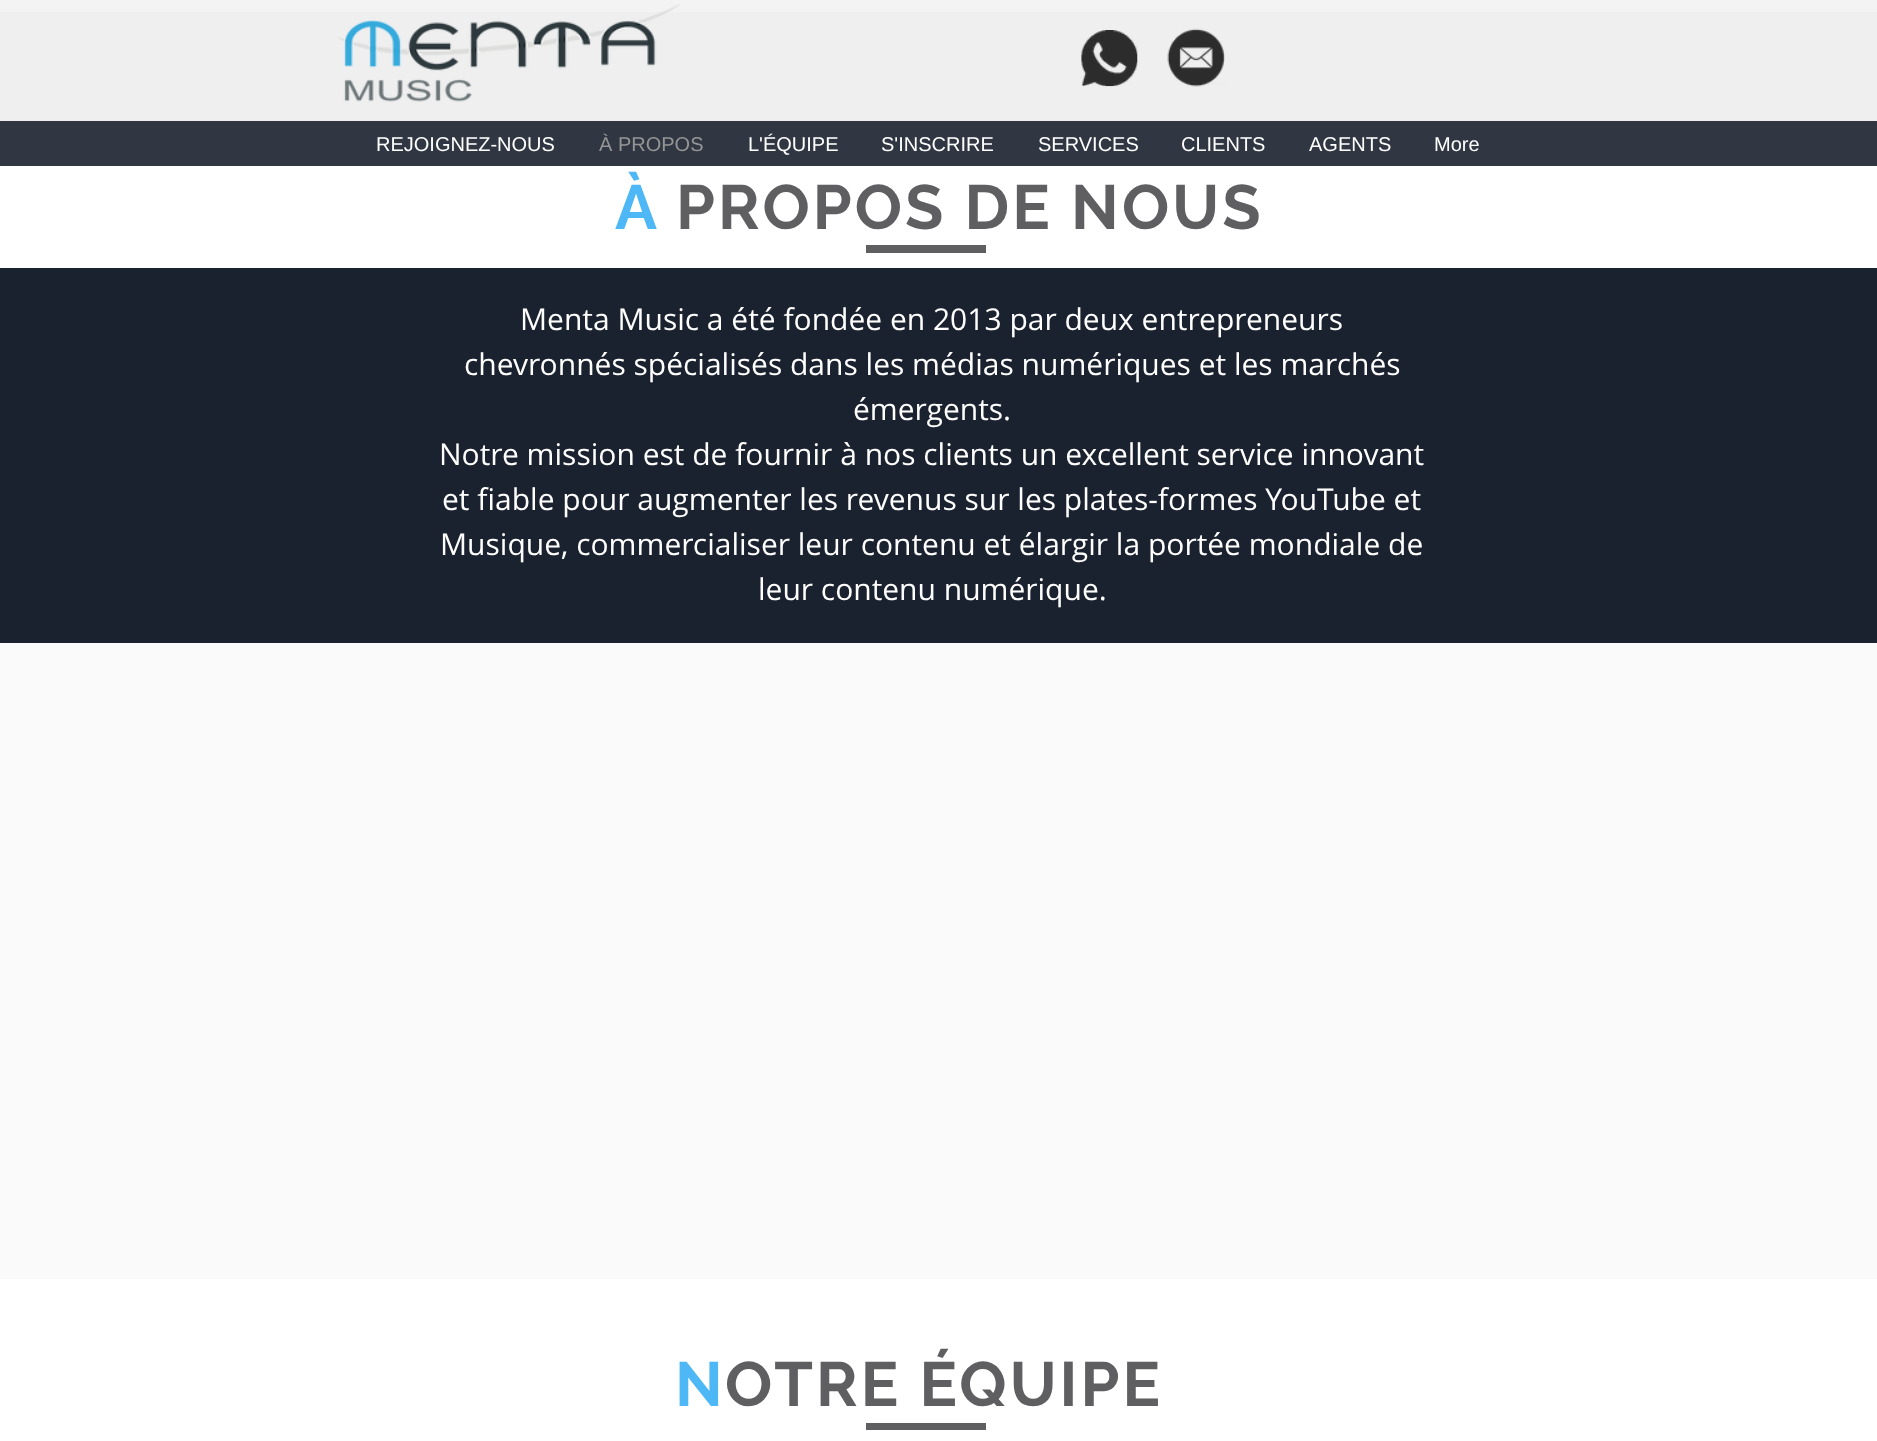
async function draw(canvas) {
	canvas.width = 1877;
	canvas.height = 1441;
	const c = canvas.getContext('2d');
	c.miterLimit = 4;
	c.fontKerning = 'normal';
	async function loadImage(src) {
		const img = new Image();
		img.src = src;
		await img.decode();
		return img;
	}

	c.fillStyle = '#fff';
	c.fillRect(0, 0, 1877, 1441);
	c.fillStyle = '#efeff0';
	c.fillRect(0, 12, 1877, 109);
	c.fillStyle = '#f3f3f4';
	c.fillRect(0, 0, 1877, 12);
	c.drawImage(await loadImage('img1.png'), 337, 4, 344, 98);
	c.drawImage(await loadImage('img2.png'), 1081, 30, 57, 57);
	c.drawImage(await loadImage('img3.png'), 1167, 28, 58, 59);
	c.fillStyle = '#303742';
	c.fillRect(0, 121, 1877, 45);
	c.font = '20px Liberation Sans';
	c.fillStyle = '#fff';
	c.fillText('REJOIGNEZ-NOUS', 376, 151);
	c.fillStyle = '#959595';
	c.fillText('À PROPOS', 599, 151);
	c.fillStyle = '#fff';
	for (const [text, x, y] of [
		['L\'ÉQUIPE', 748, 151],
		['S\'INSCRIRE', 881, 151],
		['SERVICES', 1038, 151],
		['CLIENTS', 1181, 151],
		['AGENTS', 1309, 151],
		['More', 1434, 151],
	]) {
		c.fillText(text, x, y);
	}
	c.letterSpacing = '3.1px';
	c.font = 'bold 62.5px Raleway';
	c.fillStyle = '#4eb7f5';
	c.fillText('À', 615, 229);
	c.fillStyle = '#5f5e61';
	c.fillText('PROPOS DE NOUS', 676, 229);
	c.fillRect(866, 245, 120, 8);
	c.fillStyle = '#1b222f';
	c.fillRect(0, 268, 1877, 375);
	c.letterSpacing = '0px';
	c.font = '30px Open Sans';
	c.fillStyle = '#fff';
	for (const [text, x, y] of [
		['Menta Music a été fondée en 2013 par deux entrepreneurs', 520, 330],
		['chevronnés spécialisés dans les médias numériques et les marchés', 464, 375],
		['émergents.', 853, 420],
		['Notre mission est de fournir à nos clients un excellent service innovant', 439, 465],
		['et fiable pour augmenter les revenus sur les plates-formes YouTube et', 442, 510],
		['Musique, commercialiser leur contenu et élargir la portée mondiale de', 440, 555],
		['leur contenu numérique.', 758, 600],
	]) {
		c.fillText(text, x, y);
	}
	c.fillStyle = '#fafafa';
	c.fillRect(0, 643, 1877, 636);
	c.letterSpacing = '3.1px';
	c.font = 'bold 62.5px Raleway';
	c.fillStyle = '#4eb7f5';
	c.fillText('N', 675, 1406);
	c.fillStyle = '#5f5e61';
	c.fillText('OTRE ÉQUIPE', 725, 1406);
	c.fillRect(866, 1423, 120, 7);
}

draw(document.querySelector('canvas'));
